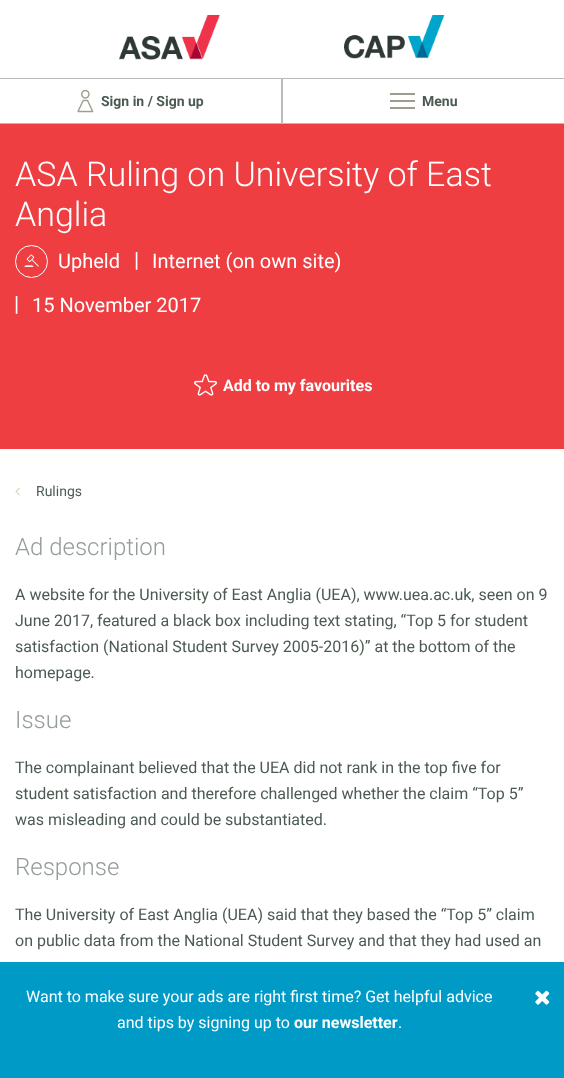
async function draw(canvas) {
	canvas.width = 564;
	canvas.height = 1078;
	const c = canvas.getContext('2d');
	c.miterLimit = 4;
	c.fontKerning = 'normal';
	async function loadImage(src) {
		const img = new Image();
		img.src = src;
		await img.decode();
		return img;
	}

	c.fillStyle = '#fff';
	c.fillRect(0, 0, 564, 1078);
	c.drawImage(await loadImage('img1.png'), 119, 15, 101, 45);
	c.drawImage(await loadImage('img2.png'), 344, 15, 101, 44);
	for (const [x, y, w, h, color] of [
		[0, 78, 564, 1, '#b7bdba'],
		[282, 123, 282, 1, '#b7bdba'],
		[281, 78, 2, 46, '#b7bdba'],
		[0, 123, 282, 1, '#b7bdba'],
	]) {
		c.fillStyle = color;
		c.fillRect(x, y, w, h);
	}
	c.drawImage(await loadImage('img3.png'), 77, 89, 17, 24);
	c.font = 'bold 14px Roboto';
	c.fillStyle = '#4c5b52';
	c.fillText('Sign in / Sign up', 101, 106);
	for (const [x, y, w, h, color] of [
		[390, 100, 25, 2, '#9d9c8e'],
		[390, 93, 25, 2, '#9d9c8e'],
		[390, 107, 25, 2, '#9d9c8e'],
	]) {
		c.fillStyle = color;
		c.fillRect(x, y, w, h);
	}
	c.fillStyle = '#4c5b52';
	c.fillText('Menu', 422, 106);
	c.fillStyle = '#ef3e42';
	c.fillRect(0, 124, 564, 325);
	c.font = '300 34px Roboto';
	c.fillStyle = '#fff';
	c.fillText('ASA Ruling on University of East', 15, 186);
	c.fillText('Anglia', 15, 226);
	c.beginPath();
	c.arc(31.5, 261.5, 16, 0, 2 * Math.PI);
	c.strokeStyle = '#fff';
	c.stroke();
	c.drawImage(await loadImage('img4.png'), 24, 254, 15, 13);
	c.font = '20px Roboto';
	c.fillText('Upheld', 58, 268);
	c.font = '21px Roboto';
	c.fillText('|', 134, 267);
	c.font = '20px Roboto';
	c.fillText('Internet (on own site)', 152, 268);
	c.font = '21px Roboto';
	c.fillText('|', 14, 311);
	c.font = '20px Roboto';
	c.fillText('15 November 2017', 32, 312);
	c.drawImage(await loadImage('img5.png'), 194, 374, 23, 22);
	c.font = 'bold 16px Roboto';
	c.fillText('Add to my favourites', 223, 391);
	c.drawImage(await loadImage('img6.png'), 15, 487, 5, 9);
	c.font = '14px Roboto';
	c.fillStyle = '#4c5b52';
	c.fillText('Rulings', 36, 496);
	c.font = '300 24px Roboto';
	c.fillStyle = '#949d97';
	c.fillText('Ad description', 15, 555);
	c.font = '16px Roboto';
	c.fillStyle = '#4c5b52';
	for (const [text, x, y] of [
		['A website for the University of East Anglia (UEA), www.uea.ac.uk, seen on 9', 15, 600],
		['June 2017, featured a black box including text stating, “Top 5 for student', 15, 626],
		['satisfaction (National Student Survey 2005-2016)” at the bottom of the', 15, 652],
		['homepage.', 15, 678],
	]) {
		c.fillText(text, x, y);
	}
	c.font = '300 24px Roboto';
	c.fillStyle = '#949d97';
	c.fillText('Issue', 15, 728);
	c.font = '16px Roboto';
	c.fillStyle = '#4c5b52';
	for (const [text, x, y] of [
		['The complainant believed that the UEA did not rank in the top five for', 15, 773],
		['student satisfaction and therefore challenged whether the claim “Top 5”', 15, 799],
		['was misleading and could be substantiated.', 15, 825],
	]) {
		c.fillText(text, x, y);
	}
	c.font = '300 24px Roboto';
	c.fillStyle = '#949d97';
	c.fillText('Response', 15, 875);
	c.font = '16px Roboto';
	c.fillStyle = '#4c5b52';
	c.fillText('The University of East Anglia (UEA) said that they based the “Top 5” claim', 15, 920);
	c.fillText('on public data from the National Student Survey and that they had used an', 15, 946);
	c.fillStyle = '#009ac7';
	c.fillRect(0, 962, 564, 116);
	c.fillStyle = '#fff';
	c.fillText('Want to make sure your ads are right first time? Get helpful advice', 26, 1002);
	c.fillText('and tips by signing up to', 117, 1028);
	c.font = 'bold 16px Roboto';
	c.fillText('our newsletter', 294, 1028);
	c.font = '16px Roboto';
	c.fillText('.', 398, 1028);
	c.drawImage(await loadImage('img7.png'), 535, 990, 15, 15);
}

draw(document.querySelector('canvas'));
